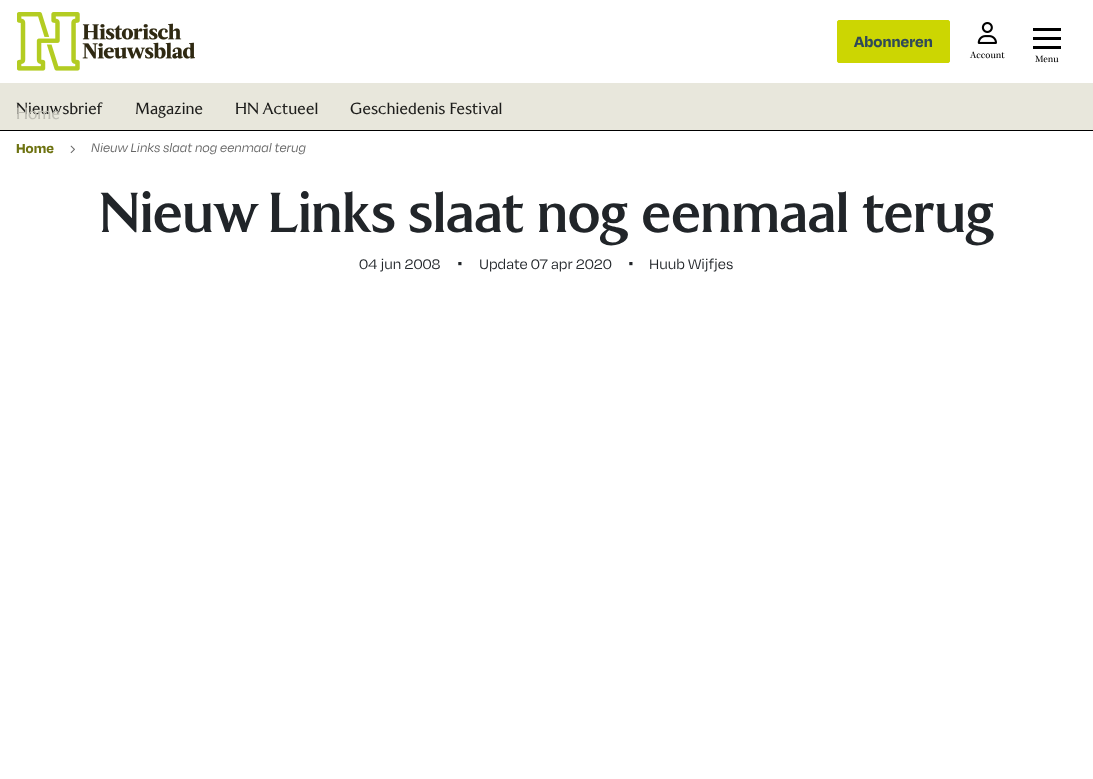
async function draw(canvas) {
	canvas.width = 1093;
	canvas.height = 779;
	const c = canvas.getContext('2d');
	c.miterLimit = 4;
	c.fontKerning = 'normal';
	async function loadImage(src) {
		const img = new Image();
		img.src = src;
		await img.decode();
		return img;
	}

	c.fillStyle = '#fff';
	c.fillRect(0, 0, 1093, 779);
	c.drawImage(await loadImage('img1.png'), 17, 12, 178, 59);
	c.fillStyle = '#ccd602';
	c.beginPath();
	c.roundRect(837.5, 20.5, 112, 42, 1.5);
	c.fill();
	c.strokeStyle = '#ccd602';
	c.stroke();
	c.font = 'bold 17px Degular';
	c.fillStyle = '#2f4959';
	c.fillText('Abonneren', 854, 47);
	c.drawImage(await loadImage('img2.png'), 977, 22, 20, 22);
	c.font = '10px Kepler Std';
	c.fillStyle = '#000';
	c.fillText('Account', 970, 58);
	for (const [x, y, w, h, color] of [
		[1033, 28, 28, 3, '#000'],
		[1033, 37, 28, 3, '#000'],
		[1033, 46, 28, 3, '#000'],
	]) {
		c.fillStyle = color;
		c.fillRect(x, y, w, h);
	}
	c.fillText('Menu', 1035, 62);
	c.fillStyle = '#e8e7dc';
	c.fillRect(0, 83, 1093, 47);
	c.fillStyle = '#000';
	c.fillRect(0, 130, 1093, 1);
	c.font = '16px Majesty';
	c.fillStyle = '#1d1d1b';
	for (const [text, x, y] of [
		['Nieuwsbrief', 16, 114],
		['Magazine', 135, 114],
		['HN Actueel', 235, 114],
		['Geschiedenis Festival', 350, 114],
	]) {
		c.fillText(text, x, y);
	}
	c.fillStyle = '#bdbcb3';
	c.fillText('Home', 16, 119);
	c.font = 'bold 15px Degular';
	c.fillStyle = '#6e7311';
	c.fillText('Home', 16, 153);
	c.drawImage(await loadImage('img3.png'), 70, 145, 5, 9);
	c.font = 'italic 14px Degular';
	c.fillStyle = '#666';
	c.fillText('Nieuw Links slaat nog eenmaal terug', 91, 152);
	c.letterSpacing = '-0.8px';
	c.font = '500 56px Majesty';
	c.fillStyle = '#212529';
	c.fillText('Nieuw Links slaat nog eenmaal terug', 99, 232);
	c.letterSpacing = '0px';
	c.font = '16px Degular';
	c.fillText('04 jun 2008', 359, 269);
	c.font = '22px Degular';
	c.fillText('•', 457, 269);
	c.font = '16px Degular';
	c.fillText('Update 07 apr 2020', 479, 269);
	c.font = '22px Degular';
	c.fillText('•', 628, 269);
	c.font = '16px Degular';
	c.fillText('Huub Wijfjes', 649, 269);
}

draw(document.querySelector('canvas'));
